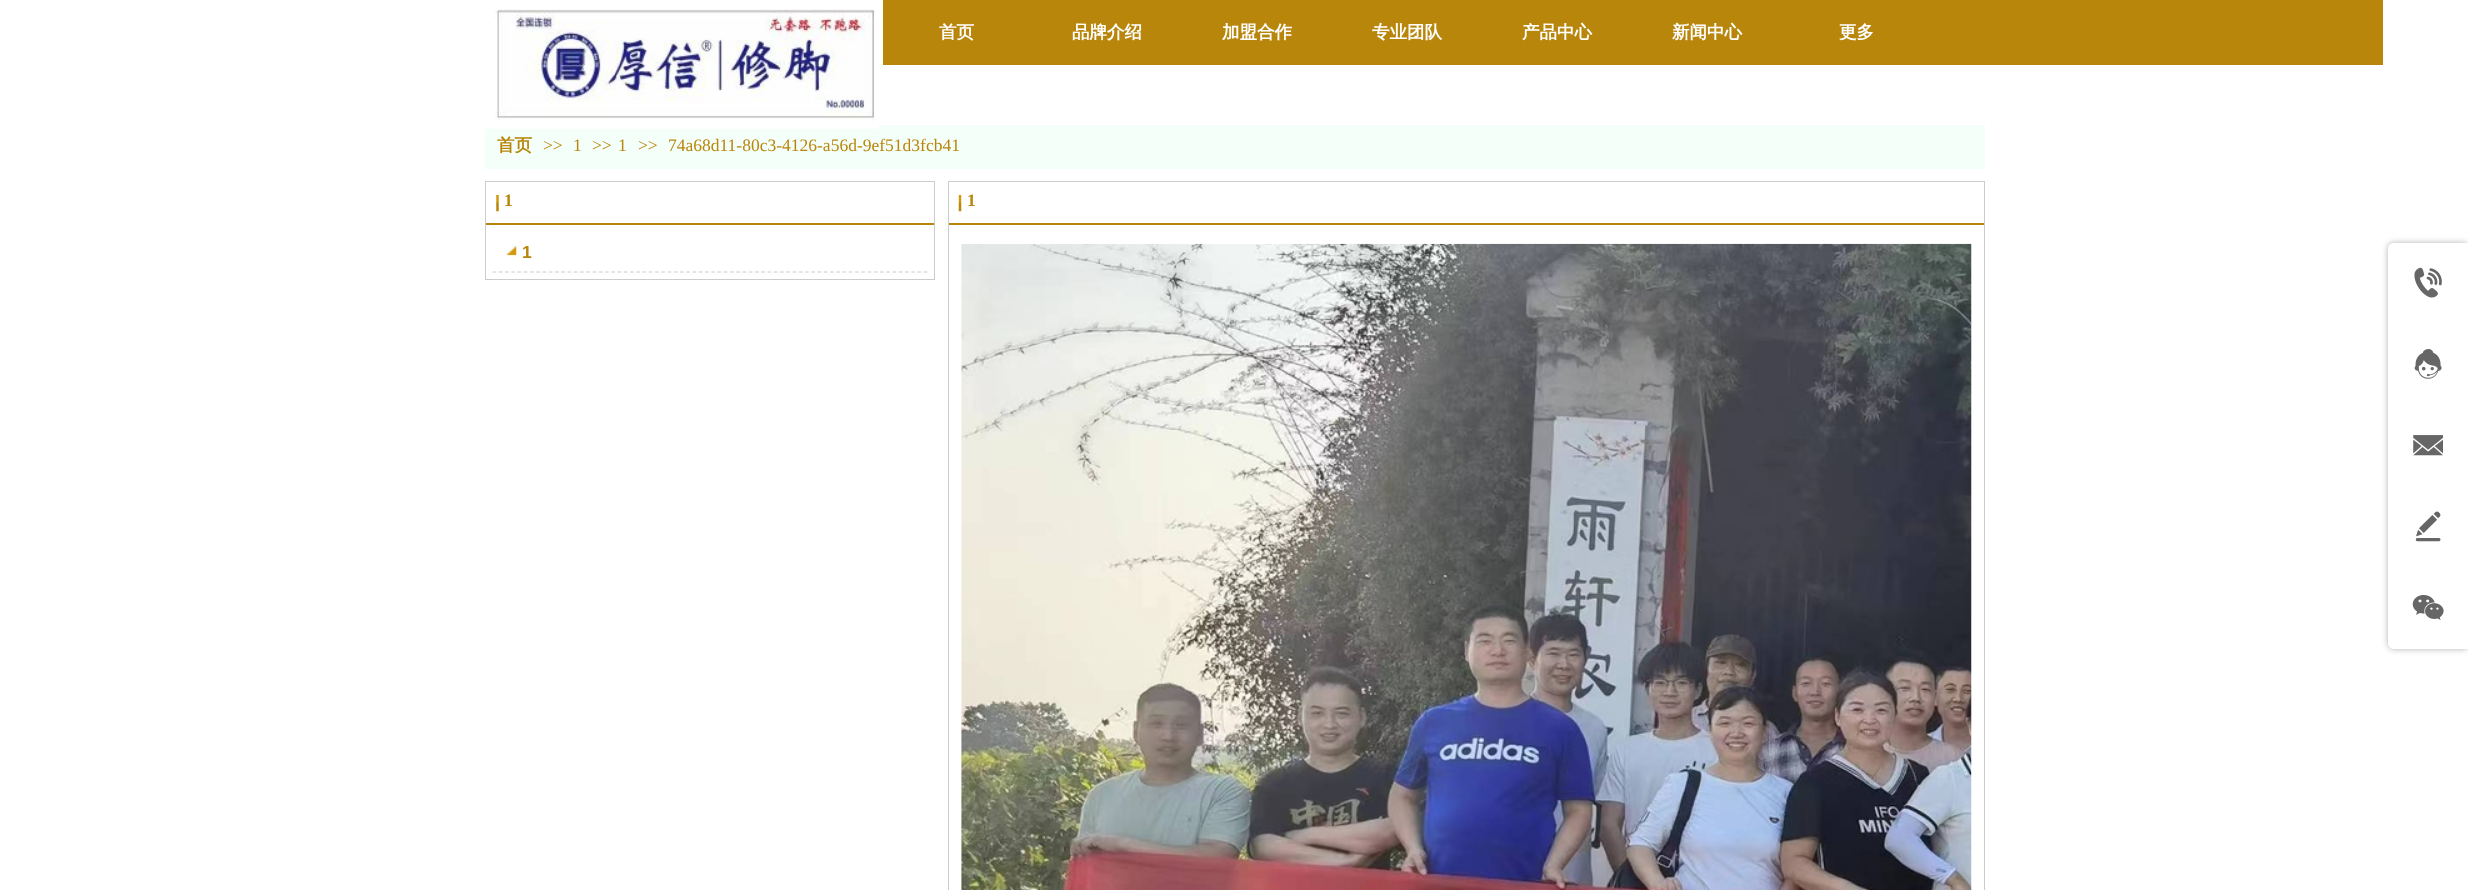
async function draw(canvas) {
	canvas.width = 2468;
	canvas.height = 890;
	const c = canvas.getContext('2d');
	c.miterLimit = 4;
	c.fontKerning = 'normal';
	async function loadImage(src) {
		const img = new Image();
		img.src = src;
		await img.decode();
		return img;
	}

	c.fillStyle = '#fff';
	c.fillRect(0, 0, 2468, 890);
	c.fillStyle = '#f5fffa';
	c.fillRect(485, 125, 1500, 44);
	c.drawImage(await loadImage('img1.png'), 485, 9, 394, 120);
	c.fillStyle = '#b8860b';
	c.fillRect(883, 0, 1500, 65);
	c.font = 'bold 17.5px WenQuanYi Zen Hei';
	c.fillStyle = '#fff';
	for (const [text, x, y] of [
		['首页', 939, 38],
		['品牌介绍', 1072, 38],
		['加盟合作', 1222, 38],
		['专业团队', 1372, 38],
		['产品中心', 1522, 38],
		['新闻中心', 1672, 38],
		['更多', 1839, 38],
	]) {
		c.fillText(text, x, y);
	}
	c.fillStyle = '#b8860b';
	c.fillText('首页', 497, 151);
	c.font = '17.5px Liberation Serif';
	for (const [text, x, y] of [
		['>>', 543, 151],
		['1', 573, 151],
		['>>', 592, 151],
		['1', 618, 151],
		['>>', 638, 151],
		['74a68d11-80c3-4126-a56d-9ef51d3fcb41', 668, 151],
	]) {
		c.fillText(text, x, y);
	}
	c.strokeStyle = '#ccc';
	c.strokeRect(485.5, 181.5, 449, 98);
	c.drawImage(await loadImage('img2.png'), 496, 195, 3, 17);
	c.font = 'bold 17.5px Liberation Serif';
	c.fillText('1', 504, 206);
	c.fillRect(486, 223, 448, 2);
	c.beginPath();
	c.moveTo(492.5, 272);
	c.lineTo(927.5, 272);
	c.lineWidth = 1.2;
	c.setLineDash([3.75, 2.5]);
	c.stroke();
	c.drawImage(await loadImage('img3.png'), 506, 246, 11, 10);
	c.font = 'bold 17.5px Liberation Sans';
	c.fillText('1', 522, 258);
	c.lineWidth = 1;
	c.setLineDash([]);
	c.strokeRect(948.5, 181.5, 1036, 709);
	c.drawImage(await loadImage('img4.png'), 958, 195, 4, 17);
	c.font = 'bold 17.5px Liberation Serif';
	c.fillText('1', 967, 206);
	c.fillRect(949, 223, 1035, 2);
	c.drawImage(await loadImage('img5.png'), 961, 243, 1011, 647);
	c.fillStyle = '#0000004d';
	c.filter = 'blur(3px)';
	c.beginPath();
	c.roundRect(2388, 243, 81, 406, 6);
	c.fill();
	c.filter = 'none';
	c.fillStyle = '#fff';
	c.beginPath();
	c.moveTo(2394, 243);
	c.lineTo(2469, 243);
	c.lineTo(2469, 649);
	c.lineTo(2394, 649);
	c.bezierCurveTo(2390.5, 649, 2388, 646.5, 2388, 643);
	c.lineTo(2388, 249);
	c.bezierCurveTo(2388, 245.5, 2390.5, 243, 2394, 243);
	c.closePath();
	c.fill();
	c.drawImage(await loadImage('img6.png'), 2414, 267, 28, 31);
	c.drawImage(await loadImage('img7.png'), 2414, 349, 28, 30);
	c.drawImage(await loadImage('img8.png'), 2413, 435, 30, 21);
	c.drawImage(await loadImage('img9.png'), 2415, 511, 26, 31);
	c.drawImage(await loadImage('img10.png'), 2412, 595, 32, 25);
}

draw(document.querySelector('canvas'));
